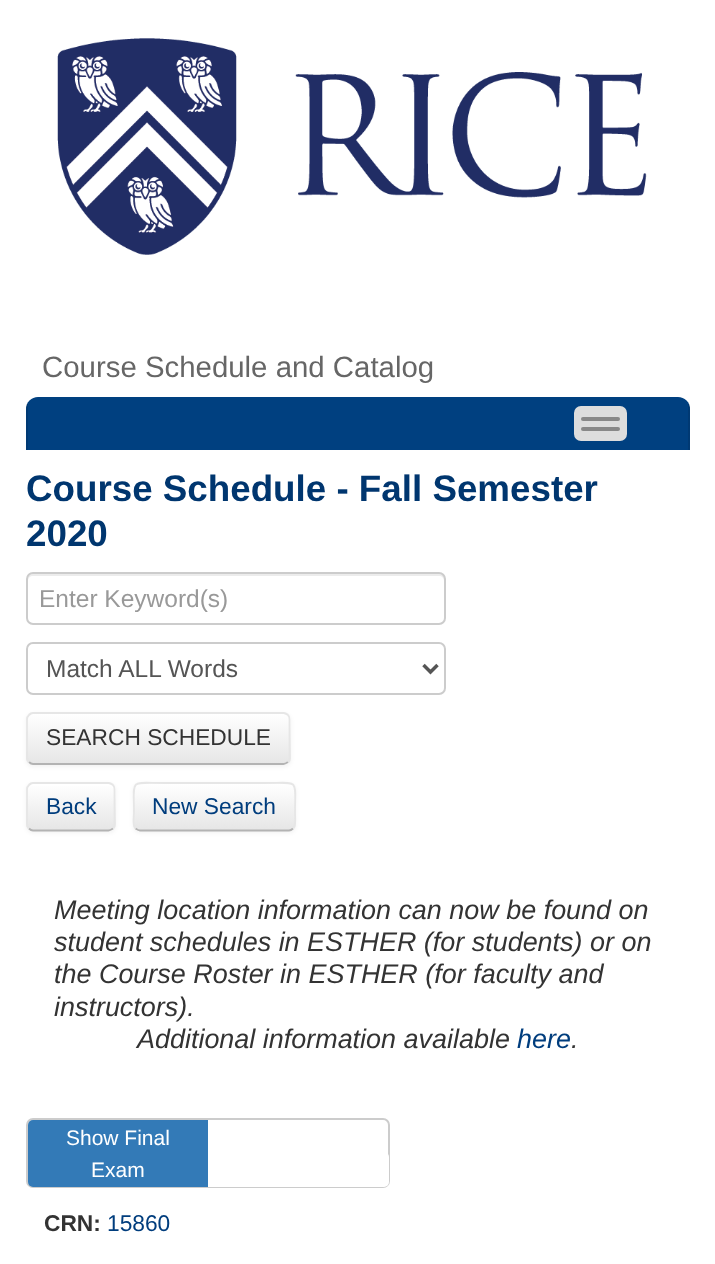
async function draw(canvas) {
	canvas.width = 715;
	canvas.height = 1264;
	const c = canvas.getContext('2d');
	c.miterLimit = 4;
	c.fontKerning = 'normal';
	async function loadImage(src) {
		const img = new Image();
		img.src = src;
		await img.decode();
		return img;
	}
	let gradient;

	c.fillStyle = '#fff';
	c.fillRect(0, 0, 715, 1264);
	c.drawImage(await loadImage('img1.png'), 57, 38, 590, 217);
	c.font = '29.4px Liberation Sans';
	c.fillStyle = '#666';
	c.fillText('Course Schedule and Catalog', 42, 377);
	c.fillStyle = '#004080';
	c.beginPath();
	c.roundRect(26, 397, 664, 53, [12, 12, 0, 0]);
	c.fill();
	c.fillStyle = '#0000001a';
	c.fillRect(688, 404, 2, 46);
	c.fillRect(26, 404, 2, 46);
	c.fillStyle = '#ddd';
	c.beginPath();
	c.roundRect(575, 407, 51, 33, 6);
	c.fill();
	c.strokeStyle = '#ddd';
	c.lineWidth = 2;
	c.stroke();
	c.fillStyle = '#888';
	c.beginPath();
	c.roundRect(581, 417, 39, 4, 2);
	c.fill();
	c.beginPath();
	c.roundRect(581, 427, 39, 4, 2);
	c.fill();
	c.font = 'bold 36.75px Liberation Sans';
	c.fillStyle = '#00366f';
	c.fillText('Course Schedule - Fall Semester', 26, 501);
	c.fillText('2020', 26, 546);
	c.fillStyle = '#ececec';
	c.beginPath();
	c.moveTo(33, 576);
	c.lineTo(439, 576);
	c.bezierCurveTo(442, 576, 444, 578, 444, 581);
	c.lineTo(444, 621);
	c.bezierCurveTo(445, 620, 445, 619, 445, 618);
	c.lineTo(445, 579);
	c.bezierCurveTo(445, 576, 443, 574, 440, 574);
	c.lineTo(33, 574);
	c.bezierCurveTo(30, 574, 28, 576, 28, 579);
	c.lineTo(28, 581);
	c.bezierCurveTo(28, 578, 30, 576, 33, 576);
	c.closePath();
	c.fill();
	c.beginPath();
	c.roundRect(27, 573, 418, 51, 6);
	c.strokeStyle = '#ccc';
	c.stroke();
	c.font = '24.5px Liberation Sans';
	c.fillStyle = '#999';
	c.fillText('Enter Keyword(s)', 39, 607);
	c.beginPath();
	c.roundRect(27, 643, 418, 51, 6);
	c.stroke();
	c.beginPath();
	c.moveTo(423.5, 665);
	c.lineTo(430.5, 672);
	c.lineTo(437.5, 665);
	c.strokeStyle = '#555';
	c.lineWidth = 3.5;
	c.stroke();
	c.fillStyle = '#555';
	c.fillText('Match ALL Words', 46, 677);
	c.fillStyle = '#0000000d';
	c.filter = 'blur(2px)';
	c.beginPath();
	c.roundRect(26, 714, 265, 53, 7);
	c.fill();
	c.filter = 'none';
	c.fillStyle = '#f5f5f5';
	c.beginPath();
	c.roundRect(26, 712, 265, 53, 7);
	c.fill();
	c.save();
	c.beginPath();
	c.roundRect(26, 712, 265, 53, 7);
	c.clip();
	gradient = c.createLinearGradient(158, 714, 158, 763);
	gradient.addColorStop(0, '#fff');
	gradient.addColorStop(1, '#e6e6e6');
	c.fillStyle = gradient;
	c.fillRect(26, 714, 265, 49);
	c.restore();
	c.beginPath();
	c.moveTo(288, 762);
	c.bezierCurveTo(286.5, 763, 285, 764, 283.5, 764);
	c.lineTo(33, 764);
	c.bezierCurveTo(31.5, 764, 30, 763, 29, 762);
	c.strokeStyle = '#b3b3b3';
	c.lineWidth = 1.8;
	c.stroke();
	c.beginPath();
	c.moveTo(29, 762);
	c.bezierCurveTo(28, 761, 27, 759.5, 27, 758);
	c.lineTo(27, 719);
	c.bezierCurveTo(27, 717.5, 28, 716, 29, 715);
	c.bezierCurveTo(30, 714, 31.5, 713, 33, 713);
	c.lineTo(283.5, 713);
	c.bezierCurveTo(285, 713, 286.5, 714, 288, 715);
	c.bezierCurveTo(289, 716, 289.5, 717.5, 289.5, 719);
	c.lineTo(289.5, 758);
	c.bezierCurveTo(289.5, 759.5, 289, 761, 288, 762);
	c.strokeStyle = '#e6e6e6';
	c.stroke();
	c.font = '22.75px Liberation Sans';
	c.fillStyle = '#333';
	c.fillText('SEARCH SCHEDULE', 46, 745);
	c.fillStyle = '#0000000d';
	c.filter = 'blur(2px)';
	c.beginPath();
	c.roundRect(26, 784, 90, 49, 7);
	c.fill();
	c.filter = 'none';
	c.fillStyle = '#f5f5f5';
	c.beginPath();
	c.roundRect(26, 782, 90, 49, 7);
	c.fill();
	c.save();
	c.beginPath();
	c.roundRect(26, 782, 90, 49, 7);
	c.clip();
	gradient = c.createLinearGradient(71, 784, 71, 830);
	gradient.addColorStop(0, '#fff');
	gradient.addColorStop(1, '#e6e6e6');
	c.fillStyle = gradient;
	c.fillRect(26, 784, 90, 46);
	c.restore();
	c.fillStyle = '#fff';
	c.beginPath();
	c.moveTo(33, 786);
	c.lineTo(108, 786);
	c.bezierCurveTo(111, 786, 114, 788, 114, 791);
	c.bezierCurveTo(114, 781, 105, 784, 96, 784);
	c.lineTo(46, 784);
	c.bezierCurveTo(37, 784, 28, 781, 28, 791);
	c.bezierCurveTo(28, 788, 30, 786, 33, 786);
	c.closePath();
	c.fill();
	c.beginPath();
	c.moveTo(113, 828.5);
	c.bezierCurveTo(111.5, 829.5, 110, 830.5, 108.5, 830.5);
	c.lineTo(33, 830.5);
	c.bezierCurveTo(31.5, 830.5, 30, 829.5, 29, 828.5);
	c.strokeStyle = '#b3b3b3';
	c.stroke();
	c.beginPath();
	c.moveTo(29, 828.5);
	c.bezierCurveTo(28, 827.5, 27, 826, 27, 824);
	c.lineTo(27, 789);
	c.bezierCurveTo(27, 787.5, 28, 786, 29, 785);
	c.bezierCurveTo(30, 784, 31.5, 783, 33, 783);
	c.lineTo(108.5, 783);
	c.bezierCurveTo(110, 783, 111.5, 784, 113, 785);
	c.bezierCurveTo(114, 786, 114.5, 787.5, 114.5, 789);
	c.lineTo(114.5, 824);
	c.bezierCurveTo(114.5, 826, 114, 827.5, 113, 828.5);
	c.strokeStyle = '#e6e6e6';
	c.stroke();
	c.fillStyle = '#003d7d';
	c.fillText('Back', 46, 814);
	c.fillStyle = '#0000000d';
	c.filter = 'blur(2px)';
	c.beginPath();
	c.roundRect(133, 784, 163, 49, 7);
	c.fill();
	c.filter = 'none';
	c.fillStyle = '#f5f5f5';
	c.beginPath();
	c.roundRect(133, 782, 163, 49, 7);
	c.fill();
	c.save();
	c.beginPath();
	c.roundRect(133, 782, 163, 49, 7);
	c.clip();
	gradient = c.createLinearGradient(214, 784, 214, 830);
	gradient.addColorStop(0, '#fff');
	gradient.addColorStop(1, '#e6e6e6');
	c.fillStyle = gradient;
	c.fillRect(133, 784, 163, 46);
	c.restore();
	c.beginPath();
	c.moveTo(293, 828.5);
	c.bezierCurveTo(292, 829.5, 290.5, 830.5, 289, 830.5);
	c.lineTo(140, 830.5);
	c.bezierCurveTo(138.5, 830.5, 137, 829.5, 135.5, 828.5);
	c.strokeStyle = '#b3b3b3';
	c.stroke();
	c.beginPath();
	c.moveTo(135.5, 828.5);
	c.bezierCurveTo(132, 825, 134, 816.5, 134, 812.5);
	c.bezierCurveTo(134, 778, 128.5, 783, 165, 783);
	c.lineTo(264, 783);
	c.bezierCurveTo(300.5, 783, 295, 778, 295, 812.5);
	c.bezierCurveTo(295, 816.5, 296.5, 825, 293, 828.5);
	c.strokeStyle = '#e6e6e6';
	c.stroke();
	c.fillStyle = '#003d7d';
	c.fillText('New Search', 152, 814);
	c.font = 'italic 26.95px Liberation Sans';
	c.fillStyle = '#333';
	for (const [text, x, y] of [
		['Meeting location information can now be found on', 54, 919],
		['student schedules in ESTHER (for students) or on', 54, 951],
		['the Course Roster in ESTHER (for faculty and', 54, 983],
		['instructors).', 54, 1016],
		['Additional information available', 137, 1048],
	]) {
		c.fillText(text, x, y);
	}
	c.fillStyle = '#003d7d';
	c.fillText('here', 517, 1048);
	c.fillStyle = '#333';
	c.fillText('.', 571, 1048);
	c.beginPath();
	c.roundRect(27, 1119, 362, 68, 6);
	c.strokeStyle = '#ccc';
	c.lineWidth = 2;
	c.stroke();
	c.fillStyle = '#337ab7';
	c.beginPath();
	c.roundRect(28, 1120, 180, 67, [5, 0, 0, 5]);
	c.fill();
	c.font = '21px Liberation Sans';
	c.fillStyle = '#fff';
	c.fillText('Show Final', 66, 1145);
	c.fillText('Exam', 91, 1177);
	c.beginPath();
	c.roundRect(208, 1152, 181, 35, [0, 5, 5, 0]);
	c.fill();
	c.font = 'bold 22.75px Liberation Sans';
	c.fillStyle = '#333';
	c.fillText('CRN:', 44, 1231);
	c.font = '22.75px Liberation Sans';
	c.fillStyle = '#003d7d';
	c.fillText('15860', 107, 1231);
}

draw(document.querySelector('canvas'));
